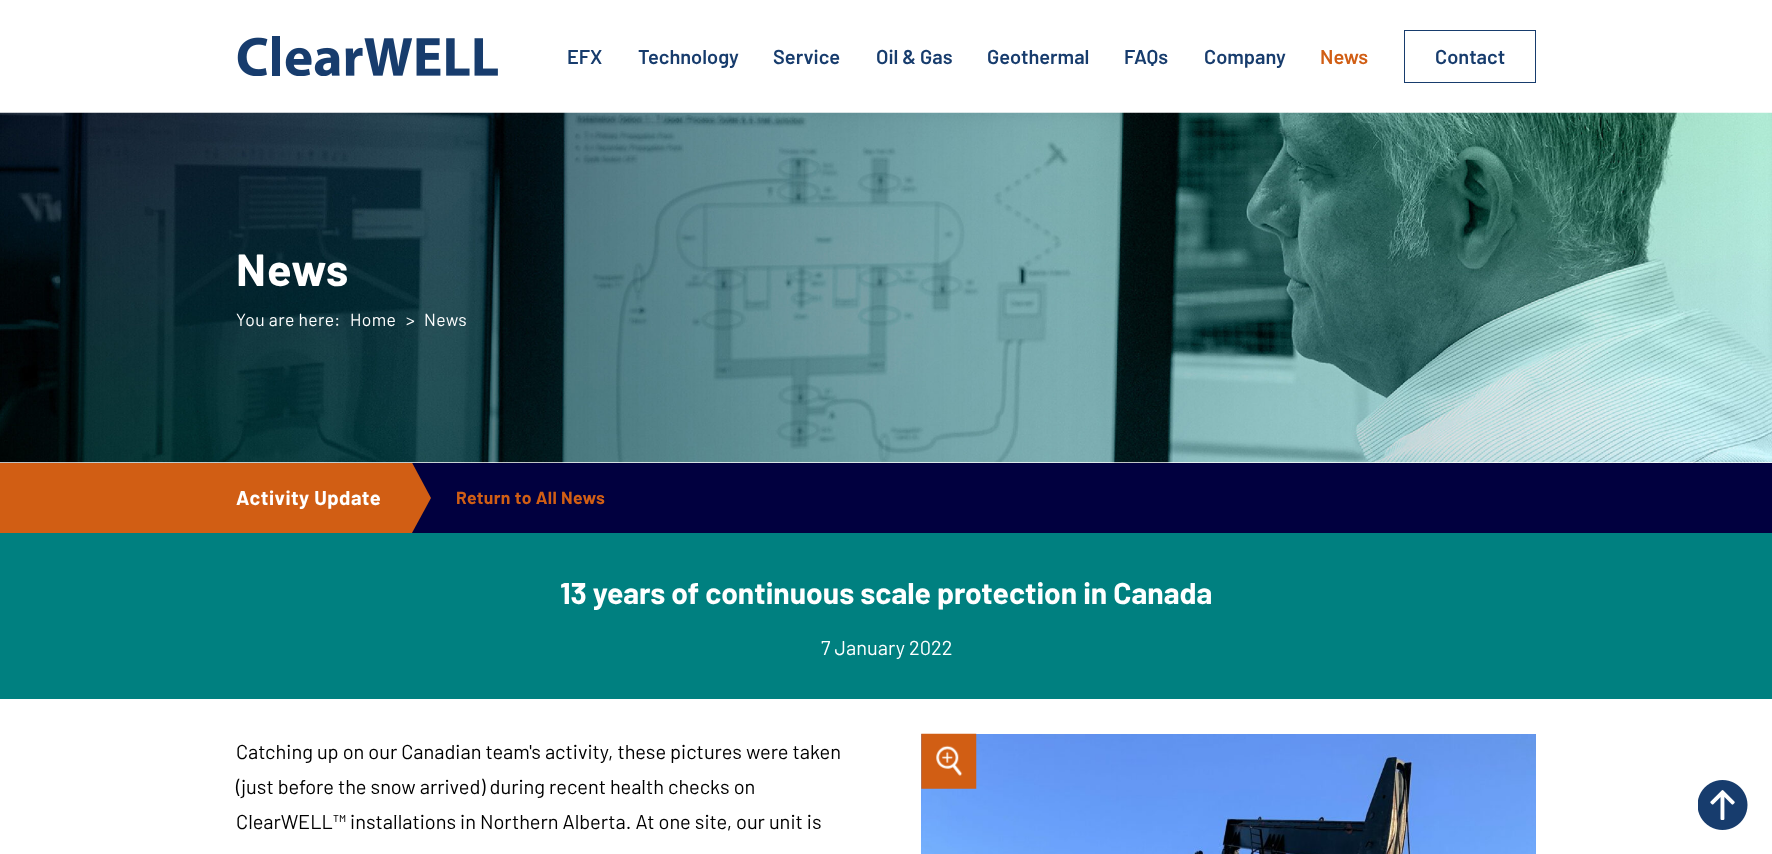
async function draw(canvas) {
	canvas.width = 1772;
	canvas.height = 854;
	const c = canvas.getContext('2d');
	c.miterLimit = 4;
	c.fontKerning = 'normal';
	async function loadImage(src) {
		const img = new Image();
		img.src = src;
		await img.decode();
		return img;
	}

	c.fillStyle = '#fff';
	c.fillRect(0, 0, 1772, 854);
	c.drawImage(await loadImage('img1.png'), 237, 36, 261, 40);
	c.font = '600 20px Barlow';
	c.fillStyle = '#173c6d';
	for (const [text, x, y] of [
		['EFX', 567, 64],
		['Technology', 638, 64],
		['Service', 773, 64],
		['Oil & Gas', 876, 64],
		['Geothermal', 987, 64],
		['FAQs', 1124, 64],
		['Company', 1204, 64],
	]) {
		c.fillText(text, x, y);
	}
	c.fillStyle = '#d15e14';
	c.fillText('News', 1320, 64);
	c.strokeStyle = '#173c6d';
	c.strokeRect(1404.5, 30.5, 131, 52);
	c.fillStyle = '#173c6d';
	c.fillText('Contact', 1435, 64);
	c.drawImage(await loadImage('img2.png'), 0, 112, 1772, 351);
	c.letterSpacing = '1px';
	c.font = 'bold 45px Barlow';
	c.fillStyle = '#fff';
	c.fillText('News', 236, 286);
	c.letterSpacing = '0.4px';
	c.font = '17.5px Barlow';
	for (const [text, x, y] of [
		['You are here:', 236, 326],
		['Home', 350, 326],
		['>', 406, 326],
		['News', 424, 326],
	]) {
		c.fillText(text, x, y);
	}
	for (const [x, y, w, h, color] of [
		[0, 463, 236, 70, '#d15e14'],
		[1536, 463, 236, 70, '#01003f'],
		[412, 463, 1124, 70, '#01003f'],
	]) {
		c.fillStyle = color;
		c.fillRect(x, y, w, h);
	}
	c.save();
	c.beginPath();
	c.rect(236, 463, 195, 70);
	c.clip();
	c.fillStyle = '#d15e14';
	c.beginPath();
	c.moveTo(394, 429);
	c.lineTo(-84, 429);
	c.lineTo(-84, 566);
	c.lineTo(394, 566);
	c.lineTo(431, 498);
	c.closePath();
	c.fill();
	c.restore();
	c.letterSpacing = '0.5px';
	c.font = 'bold 20px Barlow';
	c.fillStyle = '#fff';
	c.fillText('Activity Update', 236, 505);
	c.letterSpacing = '0.4px';
	c.font = 'bold 17.5px Barlow';
	c.fillStyle = '#d15e14';
	c.fillText('Return to All News', 456, 504);
	c.fillStyle = '#008080';
	c.fillRect(0, 533, 1772, 166);
	c.letterSpacing = '0px';
	c.font = 'bold 30px Barlow';
	c.fillStyle = '#fff';
	c.fillText('13 years of continuous scale protection in Canada', 560, 604);
	c.font = '20px Barlow';
	c.fillText('7 January 2022', 821, 655);
	c.fillStyle = '#000';
	for (const [text, x, y] of [
		['Catching up on our Canadian team\'s activity, these pictures were taken', 236, 759],
		['(just before the snow arrived) during recent health checks on', 236, 794],
		['ClearWELL™ installations in Northern Alberta. At one site, our unit is', 236, 829],
	]) {
		c.fillText(text, x, y);
	}
	c.drawImage(await loadImage('img4.png'), 921, 734, 615, 120);
	c.drawImage(await loadImage('img3.png'), 921, 733, 56, 56);
	c.drawImage(await loadImage('img5.png'), 1698, 780, 50, 50);
}

draw(document.querySelector('canvas'));
